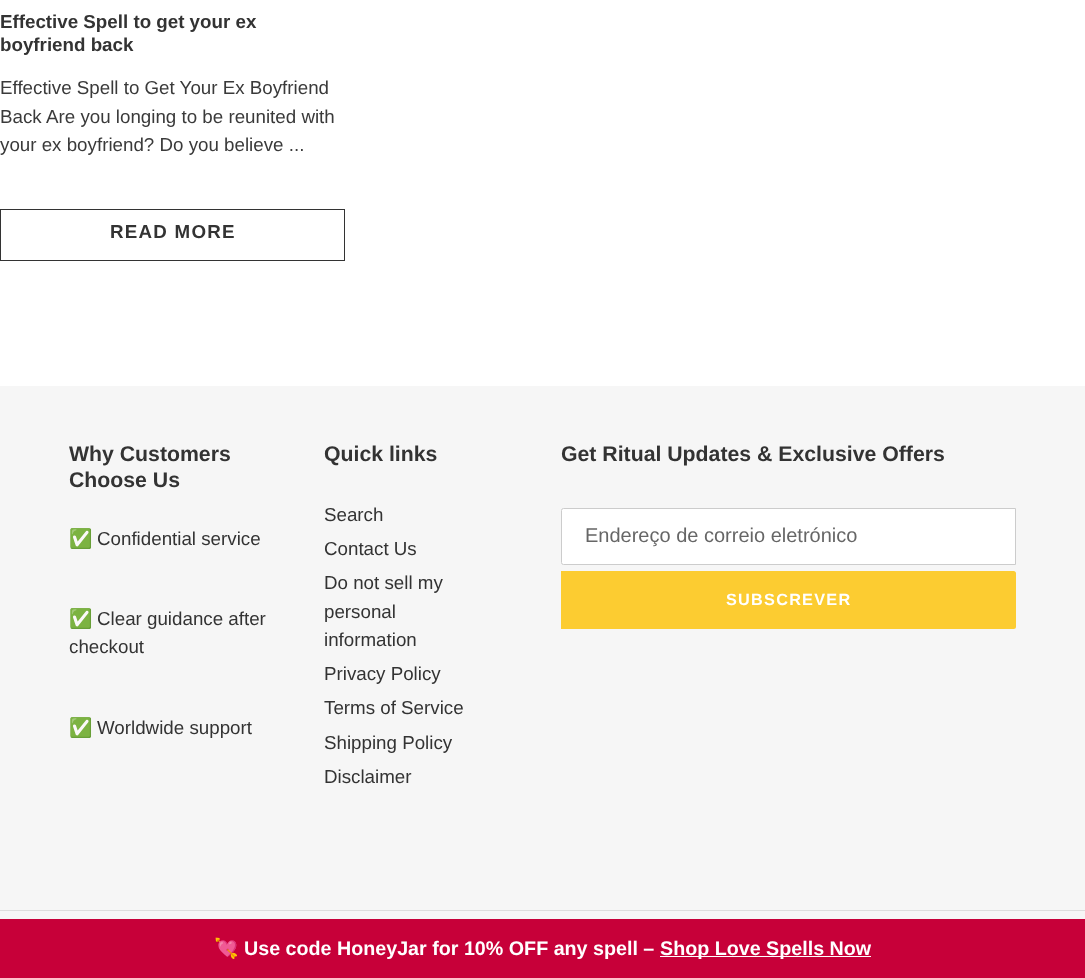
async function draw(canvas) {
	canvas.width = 1085;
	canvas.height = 978;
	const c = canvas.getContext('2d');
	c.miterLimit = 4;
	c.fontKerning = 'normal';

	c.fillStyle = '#fff';
	c.fillRect(0, 0, 1085, 978);
	c.font = 'bold 18.75px Liberation Sans';
	c.fillStyle = '#333';
	c.fillText('Effective Spell to get your ex', 0, 28);
	c.fillText('boyfriend back', 0, 51);
	c.font = '18.75px Liberation Sans';
	c.fillStyle = '#3a3a3a';
	for (const [text, x, y] of [
		['Effective Spell to Get Your Ex Boyfriend', 0, 94],
		['Back', 0, 123],
		['Are you longing to be reunited with', 46, 123],
		['your ex boyfriend? Do you believe ...', 0, 151],
	]) {
		c.fillText(text, x, y);
	}
	c.strokeStyle = '#333';
	c.strokeRect(0.5, 209.5, 344, 51);
	c.letterSpacing = '1.25px';
	c.font = 'bold 18.75px Liberation Sans';
	c.fillStyle = '#333';
	c.fillText('READ MORE', 110, 238);
	c.fillStyle = '#f6f6f6';
	c.fillRect(0, 386, 1085, 533);
	c.letterSpacing = '0px';
	c.font = 'bold 21.25px Liberation Sans';
	c.fillStyle = '#333';
	c.fillText('Why Customers', 69, 461);
	c.fillText('Choose Us', 69, 487);
	c.font = '18.75px Noto Color Emoji';
	c.fillText('✅', 69, 545);
	c.font = '18.75px Liberation Sans';
	c.fillText('Confidential service', 97, 545);
	c.font = '18.75px Noto Color Emoji';
	c.fillText('✅', 69, 625);
	c.font = '18.75px Liberation Sans';
	c.fillText('Clear guidance after', 97, 625);
	c.fillText('checkout', 69, 653);
	c.font = '18.75px Noto Color Emoji';
	c.fillText('✅', 69, 734);
	c.font = '18.75px Liberation Sans';
	c.fillText('Worldwide support', 97, 734);
	c.font = 'bold 21.25px Liberation Sans';
	c.fillText('Quick links', 324, 461);
	c.font = '18.75px Liberation Sans';
	for (const [text, x, y] of [
		['Search', 324, 521],
		['Contact Us', 324, 555],
		['Do not sell my', 324, 589],
		['personal', 324, 618],
		['information', 324, 646],
		['Privacy Policy', 324, 680],
		['Terms of Service', 324, 714],
		['Shipping Policy', 324, 749],
		['Disclaimer', 324, 783],
	]) {
		c.fillText(text, x, y);
	}
	c.font = 'bold 21.25px Liberation Sans';
	c.fillText('Get Ritual Updates & Exclusive Offers', 561, 461);
	c.fillStyle = '#fff';
	c.beginPath();
	c.roundRect(561.5, 508.5, 454, 56, [2, 0, 0, 2]);
	c.fill();
	c.strokeStyle = '#ccc';
	c.stroke();
	c.font = '20px Liberation Sans';
	c.fillStyle = '#666';
	c.fillText('Endereço de correio eletrónico', 585, 542);
	c.fillStyle = '#fccc31';
	c.beginPath();
	c.roundRect(561, 571, 455, 58, [0, 2.5, 2.5, 0]);
	c.fill();
	c.letterSpacing = '1.25px';
	c.font = 'bold 16.25px Liberation Sans';
	c.fillStyle = '#fff';
	c.fillText('SUBSCREVER', 726, 605);
	c.fillStyle = '#ddd';
	c.fillRect(0, 910, 1085, 1);
	c.fillStyle = '#c70039';
	c.fillRect(0, 919, 1085, 59);
	c.letterSpacing = '0px';
	c.font = 'bold 19.7px Noto Color Emoji';
	c.fillStyle = '#fff';
	c.fillText('💘', 214, 955);
	c.font = 'bold 19.7px Liberation Sans';
	c.fillText('Use code HoneyJar for 10% OFF any spell –', 244, 955);
	c.fillRect(660, 956, 211, 1);
	c.fillText('Shop Love Spells Now', 660, 955);
}

draw(document.querySelector('canvas'));
